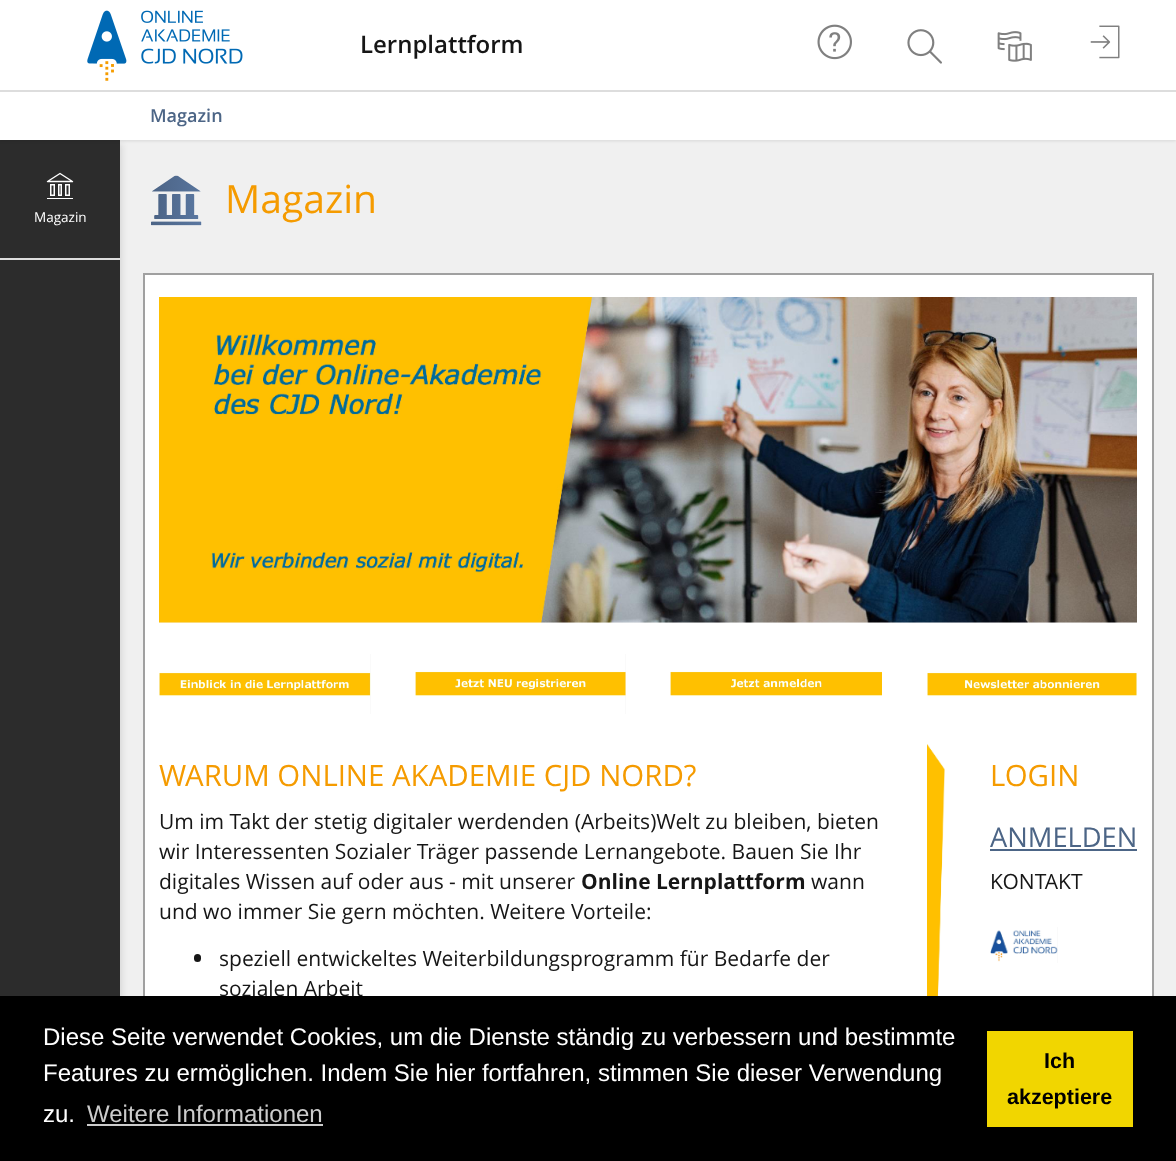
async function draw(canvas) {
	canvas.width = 1176;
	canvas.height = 1161;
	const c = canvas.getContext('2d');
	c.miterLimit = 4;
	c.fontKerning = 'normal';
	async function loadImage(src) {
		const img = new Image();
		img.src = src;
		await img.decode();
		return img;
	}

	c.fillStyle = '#f0f0f0';
	c.fillRect(0, 0, 1176, 1161);
	c.fillStyle = '#0000001a';
	c.filter = 'blur(3px)';
	c.beginPath();
	c.rect(2, 144, 120, 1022);
	c.fill();
	c.filter = 'none';
	c.fillStyle = '#2c2c2c';
	c.fillRect(0, 140, 120, 856);
	c.fillStyle = '#0000001a';
	c.filter = 'blur(1.5px)';
	c.beginPath();
	c.rect(0, 92, 1176, 49);
	c.fill();
	c.filter = 'none';
	c.fillStyle = '#fff';
	c.fillRect(0, 0, 1176, 90);
	c.drawImage(await loadImage('img1.png'), 87, 10, 156, 71);
	c.font = '600 24px Open Sans';
	c.fillStyle = '#161616';
	c.fillText('Lernplattform', 360, 53);
	c.drawImage(await loadImage('img2.png'), 817, 24, 35, 36);
	c.drawImage(await loadImage('img3.png'), 907, 29, 35, 35);
	c.drawImage(await loadImage('img4.png'), 997, 31, 35, 31);
	c.drawImage(await loadImage('img5.png'), 1090, 25, 30, 34);
	c.fillStyle = '#fff';
	c.fillRect(0, 92, 1176, 48);
	c.fillStyle = '#ddd';
	c.fillRect(0, 90, 1176, 2);
	c.font = '600 18px Open Sans';
	c.fillStyle = '#4c6586';
	c.fillText('Magazin', 150, 122);
	c.fillStyle = '#ddd';
	c.fillRect(0, 258, 120, 2);
	c.beginPath();
	c.moveTo(47.5, 181.5);
	c.lineTo(60, 173.5);
	c.lineTo(72.5, 181.5);
	c.closePath();
	c.strokeStyle = '#fff';
	c.lineWidth = 1.4;
	c.lineJoin = 'round';
	c.stroke();
	c.fillStyle = '#fff';
	c.fillRect(47, 198, 26, 1);
	c.lineWidth = 1.5;
	c.lineJoin = 'miter';
	c.strokeRect(50.75, 184.75, 3.5, 10.5);
	c.strokeRect(58.75, 184.75, 2.5, 10.5);
	c.strokeRect(65.75, 184.75, 3.5, 10.5);
	c.font = '13.5px Open Sans';
	c.fillText('Magazin', 34, 222);
	c.drawImage(await loadImage('img6.png'), 151, 175, 51, 51);
	c.font = '39px Open Sans';
	c.fillStyle = '#f59b00';
	c.fillText('Magazin', 225, 213);
	c.fillStyle = '#fff';
	c.fillRect(145, 275, 1007, 721);
	c.strokeStyle = '#a0a0a0';
	c.lineWidth = 2;
	c.strokeRect(144, 274, 1009, 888);
	c.fillStyle = '#f5f5f5';
	c.fillRect(159, 622, 978, 1);
	c.drawImage(await loadImage('img7.png'), 159, 297, 978, 326);
	c.fillRect(370, 654, 1, 60);
	c.drawImage(await loadImage('img8.png'), 159, 654, 212, 60);
	c.fillRect(625, 654, 1, 60);
	c.drawImage(await loadImage('img9.png'), 415, 654, 211, 60);
	c.drawImage(await loadImage('img10.png'), 670, 654, 212, 60);
	c.drawImage(await loadImage('img11.png'), 927, 654, 210, 60);
	c.font = '29.4px Open Sans';
	c.fillStyle = '#f59b00';
	c.fillText('WARUM ONLINE AKADEMIE CJD NORD?', 159, 786);
	c.font = '21px Open Sans';
	c.fillStyle = '#161616';
	for (const [text, x, y] of [
		['Um im Takt der stetig digitaler werdenden (Arbeits)Welt zu bleiben, bieten', 159, 829],
		['wir Interessenten Sozialer Träger passende Lernangebote. Bauen Sie Ihr', 159, 859],
		['digitales Wissen auf oder aus - mit unserer', 159, 889],
	]) {
		c.fillText(text, x, y);
	}
	c.font = 'bold 21px Open Sans';
	c.fillText('Online Lernplattform', 581, 889);
	c.font = '21px Open Sans';
	c.fillText('wann', 811, 889);
	c.fillText('und wo immer Sie gern möchten. Weitere Vorteile:', 159, 919);
	c.beginPath();
	c.roundRect(194, 954, 7, 8, 3.5);
	c.fill();
	c.fillText('speziell entwickeltes Weiterbildungsprogramm für Bedarfe der', 219, 966);
	c.fillText('sozialen Arbeit', 219, 996);
	c.drawImage(await loadImage('img12.png'), 927, 744, 18, 252);
	c.font = '29.4px Open Sans';
	c.fillStyle = '#f59b00';
	c.fillText('LOGIN', 990, 786);
	c.font = '27.25px Open Sans';
	c.fillStyle = '#4c6586';
	c.fillText('ANMELDEN', 990, 847);
	c.fillRect(990, 849, 147, 2);
	c.font = '21px Open Sans';
	c.fillStyle = '#161616';
	c.fillText('KONTAKT', 990, 889);
	c.fillStyle = '#f5f5f5';
	c.fillRect(1057, 927, 1, 36);
	c.drawImage(await loadImage('img13.png'), 990, 927, 68, 36);
	c.fillStyle = '#000';
	c.fillRect(0, 996, 1176, 165);
	c.font = '24px Liberation Sans';
	c.fillStyle = '#fff';
	for (const [text, x, y] of [
		['Diese Seite verwendet Cookies, um die Dienste ständig zu verbessern und bestimmte', 43, 1045],
		['Features zu ermöglichen. Indem Sie hier fortfahren, stimmen Sie dieser Verwendung', 43, 1081],
		['zu.', 43, 1122],
	]) {
		c.fillText(text, x, y);
	}
	c.fillStyle = '#ccc';
	c.fillText('Weitere Informationen', 87, 1122);
	c.fillRect(87, 1124, 236, 2);
	c.fillStyle = '#f1d600';
	c.fillRect(987, 1031, 146, 96);
	c.font = 'bold 21.5px Liberation Sans';
	c.fillStyle = '#000';
	c.fillText('Ich', 1044, 1068);
	c.fillText('akzeptiere', 1007, 1104);
}

draw(document.querySelector('canvas'));
